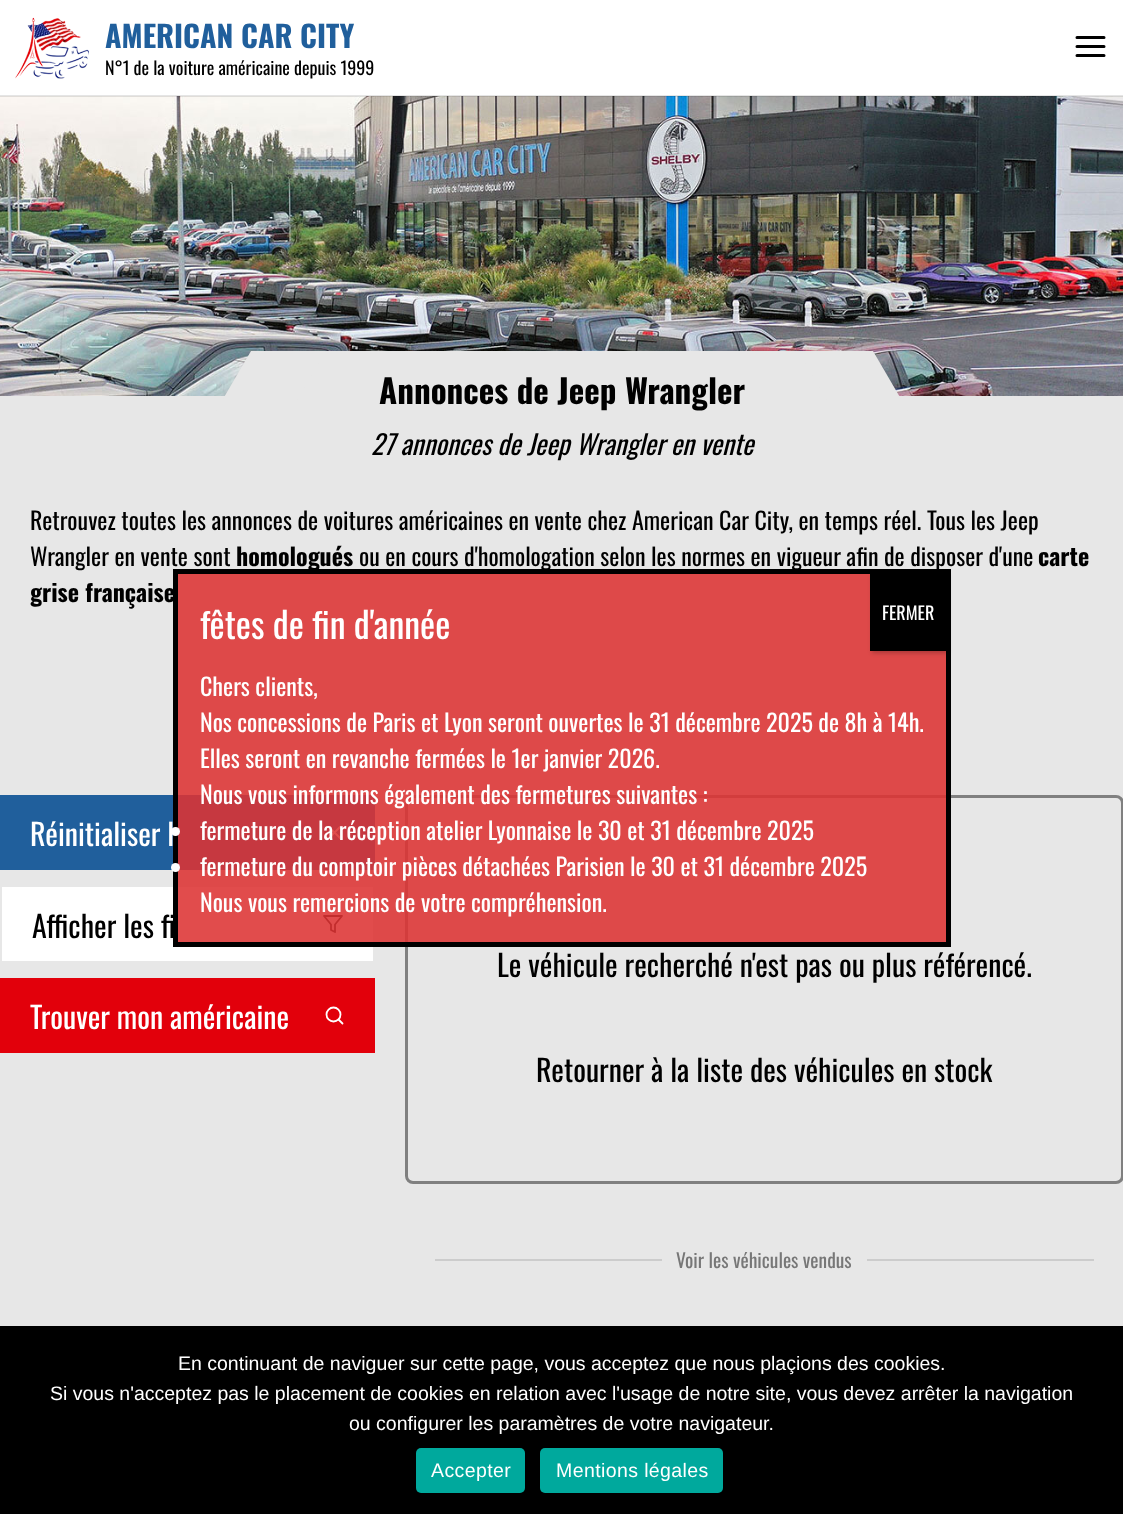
async function draw(canvas) {
	canvas.width = 1123;
	canvas.height = 1514;
	const c = canvas.getContext('2d');
	c.miterLimit = 4;
	c.fontKerning = 'normal';
	async function loadImage(src) {
		const img = new Image();
		img.src = src;
		await img.decode();
		return img;
	}

	c.fillStyle = '#fff';
	c.fillRect(0, 0, 1123, 1514);
	c.drawImage(await loadImage('img2.png'), 0, 96, 1123, 300);
	c.fillStyle = '#0000001a';
	c.fillRect(0, 95, 1123, 2);
	c.drawImage(await loadImage('img1.png'), 15, 17, 74, 62);
	c.font = 'bold 30px Oswald';
	c.fillStyle = '#205f9c';
	c.fillText('AMERICAN CAR CITY', 105, 48);
	c.font = '18px Oswald';
	c.fillStyle = '#000';
	c.fillText('N°1 de la voiture américaine depuis 1999', 105, 75);
	c.beginPath();
	c.moveTo(1077, 46.5);
	c.lineTo(1104, 46.5);
	c.moveTo(1077, 37.5);
	c.lineTo(1104, 37.5);
	c.moveTo(1077, 55.5);
	c.lineTo(1104, 55.5);
	c.strokeStyle = '#000';
	c.lineWidth = 3;
	c.lineCap = 'round';
	c.lineJoin = 'round';
	c.stroke();
	c.fillStyle = '#e7e7e7';
	c.fillRect(0, 396, 1123, 930);
	c.fillRect(291, 351, 542, 45);
	c.beginPath();
	c.moveTo(251, 351);
	c.lineTo(326, 351);
	c.lineTo(291, 411);
	c.lineTo(216, 411);
	c.closePath();
	c.fill();
	c.font = 'bold 33px Oswald';
	c.fillStyle = '#000';
	c.fillText('Annonces de Jeep Wrangler', 379, 404);
	c.fillStyle = '#e7e7e7';
	c.beginPath();
	c.moveTo(798, 351);
	c.lineTo(873, 351);
	c.lineTo(908, 411);
	c.lineTo(833, 411);
	c.closePath();
	c.fill();
	c.font = 'italic 27px Oswald';
	c.fillStyle = '#000';
	c.fillText('27 annonces de Jeep Wrangler en vente', 371, 455);
	c.font = '24px Oswald';
	c.fillText('Retrouvez toutes les annonces de voitures américaines en vente chez American Car City, en temps réel. Tous les Jeep', 30, 530);
	c.fillText('Wrangler en vente sont', 30, 566);
	c.font = 'bold 24px Oswald';
	c.fillText('homologués', 236, 566);
	c.font = '24px Oswald';
	c.fillText('ou en cours d\'homologation selon les normes en vigueur afin de disposer d\'une', 359, 566);
	c.font = 'bold 24px Oswald';
	c.fillText('carte', 1038, 566);
	c.fillText('grise française', 30, 602);
	c.fillStyle = '#205f9c';
	c.fillRect(0, 795, 375, 75);
	c.font = '30px Oswald';
	c.fillStyle = '#fff';
	c.fillText('Réinitialiser l', 30, 846);
	c.beginPath();
	c.moveTo(340, 827);
	c.lineTo(329, 838);
	c.moveTo(329, 827);
	c.lineTo(340, 838);
	c.strokeStyle = '#fff';
	c.lineWidth = 1.8;
	c.stroke();
	c.fillRect(2, 887, 371, 74);
	c.fillStyle = '#000';
	c.fillText('Afficher les fi', 32, 938);
	c.beginPath();
	c.moveTo(342, 916);
	c.lineTo(324, 916);
	c.lineTo(331, 924.5);
	c.lineTo(331, 930);
	c.lineTo(335, 932);
	c.lineTo(335, 924.5);
	c.closePath();
	c.strokeStyle = '#000';
	c.stroke();
	c.fillStyle = '#e2000b';
	c.fillRect(0, 978, 375, 75);
	c.fillStyle = '#fff';
	c.fillText('Trouver mon américaine', 30, 1029);
	c.beginPath();
	c.arc(333.5, 1014.5, 7, 0, 2 * Math.PI);
	c.strokeStyle = '#fff';
	c.stroke();
	c.beginPath();
	c.moveTo(342.5, 1023.5);
	c.lineTo(338.5, 1019.5);
	c.stroke();
	c.beginPath();
	c.roundRect(406.5, 796.5, 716, 386, 6.5);
	c.strokeStyle = '#808080';
	c.lineWidth = 3;
	c.lineJoin = 'miter';
	c.stroke();
	c.fillStyle = '#000';
	c.fillText('Le véhicule recherché n\'est pas ou plus référencé.', 497, 977);
	c.fillText('Retourner à la liste des véhicules en stock', 536, 1082);
	c.fillStyle = '#ccc';
	c.fillRect(435, 1259, 227, 2);
	c.font = '19.5px Oswald';
	c.fillStyle = '#777';
	c.fillText('Voir les véhicules vendus', 676, 1268);
	c.fillStyle = '#ccc';
	c.fillRect(867, 1259, 227, 2);
	c.fillStyle = '#dd3333e0';
	c.beginPath();
	c.rect(175.5, 571.5, 773, 373);
	c.fill();
	c.strokeStyle = '#000';
	c.lineWidth = 5;
	c.stroke();
	c.font = '36px Oswald';
	c.fillStyle = '#fff';
	c.fillText('fêtes de fin d\'année', 200, 639);
	c.fillStyle = '#0202023b';
	c.filter = 'blur(2px)';
	c.beginPath();
	c.rect(872, 575, 76, 78);
	c.fill();
	c.filter = 'none';
	c.fillStyle = '#000';
	c.fillRect(870, 574, 76, 77);
	c.font = '18px Oswald';
	c.fillStyle = '#fff';
	c.fillText('FERMER', 882, 620);
	c.font = '24px Oswald';
	for (const [text, x, y] of [
		['Chers clients,', 200, 696],
		['Nos concessions de Paris et Lyon seront ouvertes le 31 décembre 2025 de 8h à 14h.', 200, 732],
		['Elles seront en revanche fermées le 1er janvier 2026.', 200, 768],
		['Nous vous informons également des fermetures suivantes :', 200, 804],
	]) {
		c.fillText(text, x, y);
	}
	c.beginPath();
	c.arc(175.5, 831.5, 4.5, 0, 2 * Math.PI);
	c.fill();
	c.fillText('fermeture de la réception atelier Lyonnaise le 30 et 31 décembre 2025', 200, 840);
	c.beginPath();
	c.arc(175.5, 867.5, 4.5, 0, 2 * Math.PI);
	c.fill();
	c.fillText('fermeture du comptoir pièces détachées Parisien le 30 et 31 décembre 2025', 200, 876);
	c.fillText('Nous vous remercions de votre compréhension.', 200, 912);
	c.fillStyle = '#000';
	c.fillRect(0, 1326, 1123, 188);
	c.font = '19.5px Liberation Sans';
	c.fillStyle = '#fff';
	for (const [text, x, y] of [
		['En continuant de naviguer sur cette page, vous acceptez que nous plaçions des cookies.', 178, 1370],
		['Si vous n\'acceptez pas le placement de cookies en relation avec l\'usage de notre site, vous devez arrêter la navigation', 50, 1400],
		['ou configurer les paramètres de votre navigateur.', 349, 1430],
	]) {
		c.fillText(text, x, y);
	}
	c.fillStyle = '#00a99d';
	c.beginPath();
	c.roundRect(416, 1448, 109, 45, 5);
	c.fill();
	c.letterSpacing = '0.4px';
	c.fillStyle = '#fff';
	c.fillText('Accepter', 431, 1477);
	c.fillStyle = '#00a99d';
	c.beginPath();
	c.roundRect(540, 1448, 183, 45, 5);
	c.fill();
	c.fillStyle = '#fff';
	c.fillText('Mentions légales', 556, 1477);
}

draw(document.querySelector('canvas'));
